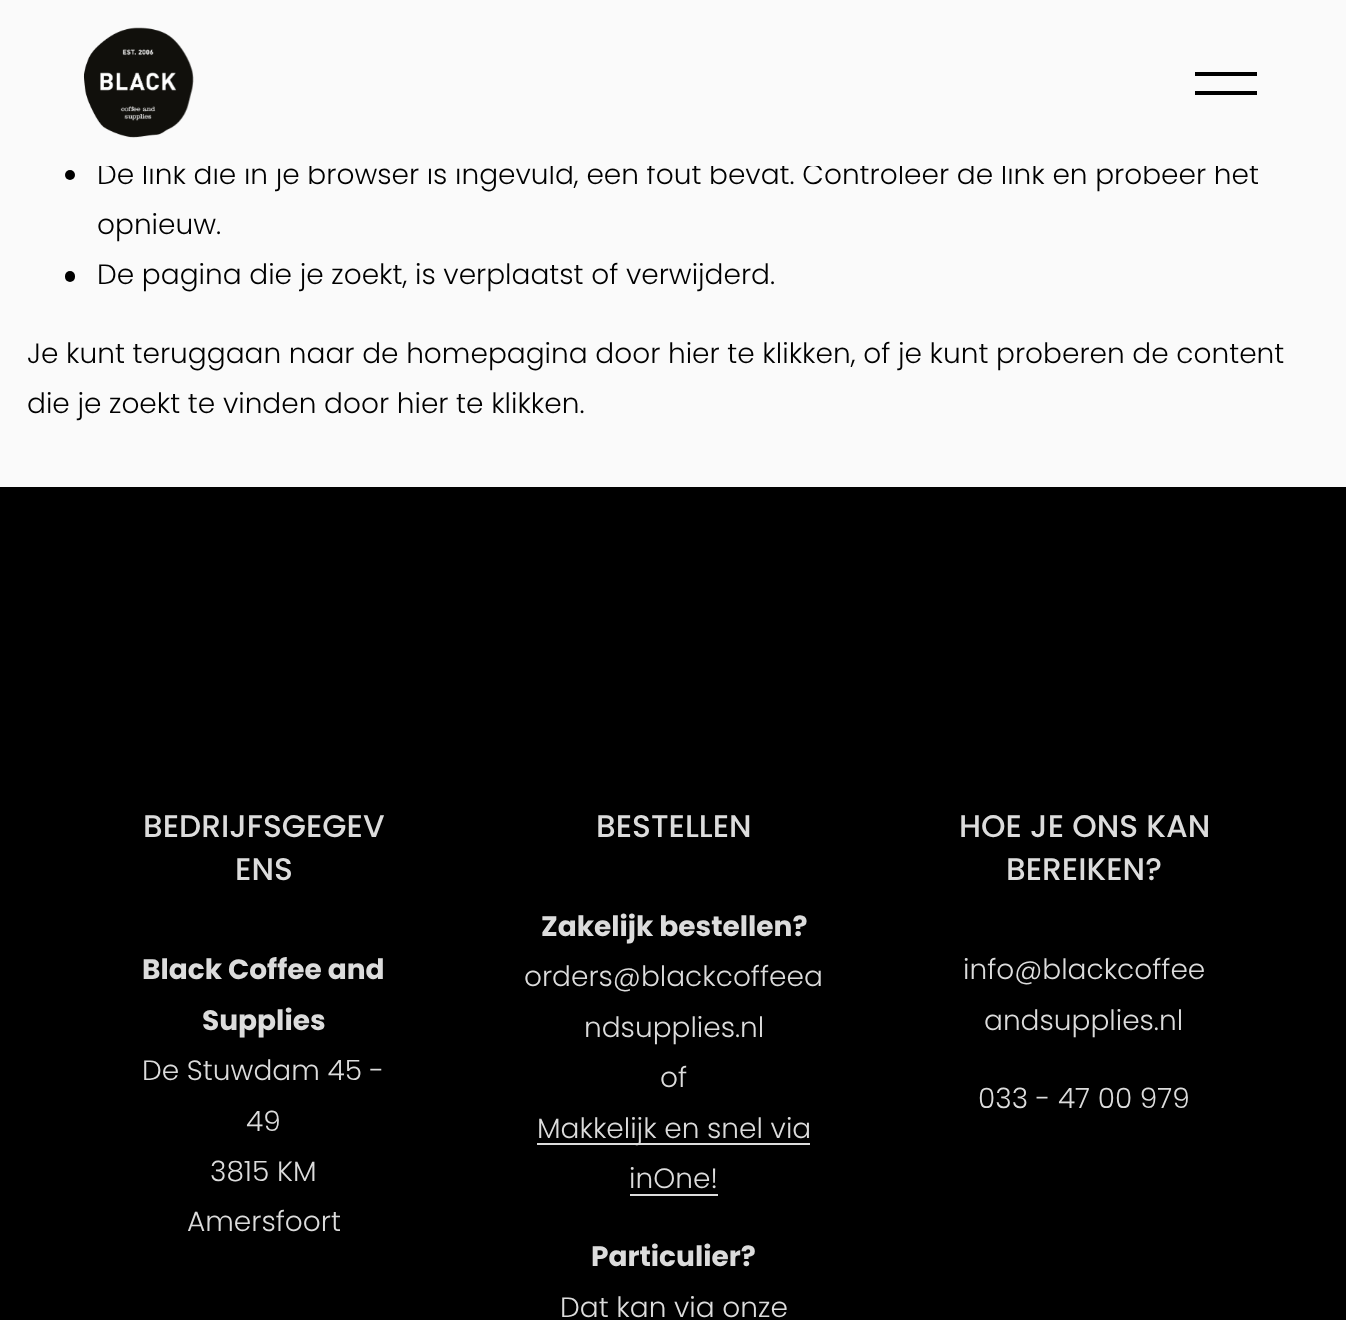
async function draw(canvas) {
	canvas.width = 1346;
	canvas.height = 1320;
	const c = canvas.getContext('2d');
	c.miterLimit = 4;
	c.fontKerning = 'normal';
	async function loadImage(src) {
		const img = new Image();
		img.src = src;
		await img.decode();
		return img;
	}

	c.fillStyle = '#fafafa';
	c.fillRect(0, 0, 1346, 1320);
	c.drawImage(await loadImage('img1.png'), 83, 27, 111, 111);
	c.fillStyle = '#000';
	c.fillRect(1195, 72, 62, 4);
	c.fillRect(1195, 91, 62, 4);
	c.font = '300 28px Poppins';
	c.fillText('De link die in je browser is ingevuld, een fout bevat. Controleer de link en probeer het', 97, 184);
	c.fillStyle = '#fafafa';
	c.fillRect(99, 162, 1155, 4);
	c.fillStyle = '#000';
	c.beginPath();
	c.arc(70, 175, 5, 0, 2 * Math.PI);
	c.fill();
	c.fillText('opnieuw.', 97, 234);
	c.beginPath();
	c.roundRect(65, 271, 10, 11, 5);
	c.fill();
	for (const [text, x, y] of [
		['De pagina die je zoekt, is verplaatst of verwijderd.', 97, 284],
		['Je kunt teruggaan naar de homepagina door hier te klikken, of je kunt proberen de content', 27, 363],
		['die je zoekt te vinden door hier te klikken.', 27, 413],
	]) {
		c.fillText(text, x, y);
	}
	c.fillRect(0, 487, 1346, 833);
	c.font = '500 31.25px Poppins';
	c.fillStyle = '#dcdcdc';
	c.fillText('BEDRIJFSGEGEV', 143, 837);
	c.fillText('ENS', 235, 880);
	c.font = 'bold 28px Poppins';
	c.fillText('Black Coffee and', 142, 979);
	c.fillText('Supplies', 202, 1030);
	c.font = '300 28px Poppins';
	for (const [text, x, y] of [
		['De Stuwdam 45 -', 142, 1080],
		['49', 246, 1131],
		['3815 KM', 210, 1181],
		['Amersfoort', 187, 1231],
	]) {
		c.fillText(text, x, y);
	}
	c.font = '500 31.25px Poppins';
	c.fillText('BESTELLEN', 596, 837);
	c.font = 'bold 28px Poppins';
	c.fillText('Zakelijk bestellen?', 541, 936);
	c.font = '300 28px Poppins';
	for (const [text, x, y] of [
		['orders@blackcoffeea', 524, 986],
		['ndsupplies.nl', 584, 1037],
		['of', 660, 1087],
	]) {
		c.fillText(text, x, y);
	}
	c.fillRect(537, 1143, 273, 2);
	c.fillText('Makkelijk en snel via', 537, 1138);
	c.fillText('inOne!', 629, 1188);
	c.fillRect(630, 1194, 88, 2);
	c.font = 'bold 28px Poppins';
	c.fillText('Particulier?', 591, 1266);
	c.font = '300 28px Poppins';
	c.fillText('Dat kan via onze', 560, 1317);
	c.font = '500 31.25px Poppins';
	c.fillText('HOE JE ONS KAN', 959, 837);
	c.fillText('BEREIKEN?', 1006, 880);
	c.font = '300 28px Poppins';
	for (const [text, x, y] of [
		['info@blackcoffee', 963, 979],
		['andsupplies.nl', 984, 1030],
		['033 - 47 00 979', 978, 1108],
	]) {
		c.fillText(text, x, y);
	}
}

draw(document.querySelector('canvas'));
